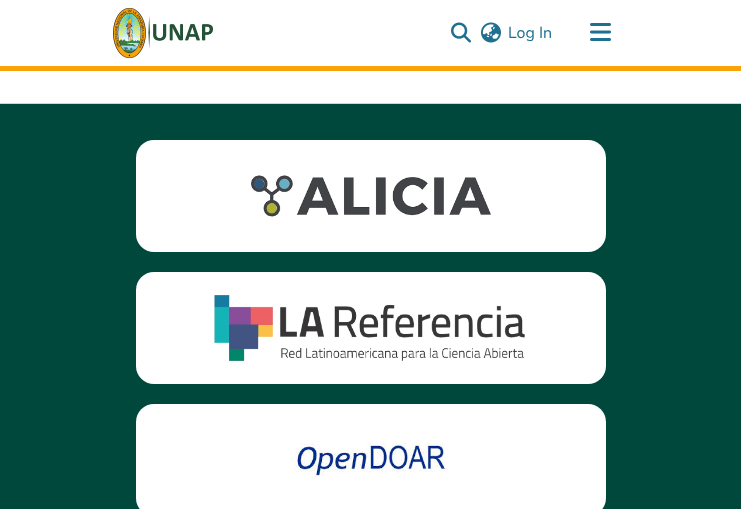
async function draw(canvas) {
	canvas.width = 741;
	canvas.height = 509;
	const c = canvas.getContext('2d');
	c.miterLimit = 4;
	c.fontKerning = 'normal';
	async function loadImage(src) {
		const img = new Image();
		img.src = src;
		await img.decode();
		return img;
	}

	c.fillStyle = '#fff';
	c.fillRect(0, 0, 741, 509);
	c.fillStyle = '#f7a309';
	c.fillRect(0, 66, 741, 5);
	c.drawImage(await loadImage('img1.png'), 113, 8, 100, 50);
	c.drawImage(await loadImage('img2.png'), 451, 22, 20, 21);
	c.drawImage(await loadImage('img3.png'), 481, 22, 20, 21);
	c.font = '16px Nunito';
	c.fillStyle = '#1e6f90';
	c.fillText('Log In', 508, 38);
	c.drawImage(await loadImage('img4.png'), 590, 23, 21, 18);
	c.fillStyle = '#00483c';
	c.fillRect(0, 104, 741, 405);
	c.fillStyle = '#ced4da';
	c.fillRect(0, 103, 741, 1);
	c.fillStyle = '#fff';
	c.beginPath();
	c.roundRect(136, 140, 470, 112, 18);
	c.fill();
	c.drawImage(await loadImage('img5.png'), 251, 175, 240, 42);
	c.beginPath();
	c.roundRect(136, 272, 470, 112, 18);
	c.fill();
	c.drawImage(await loadImage('img6.png'), 214, 295, 311, 66);
	c.beginPath();
	c.roundRect(136, 404, 470, 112, 18);
	c.fill();
	c.drawImage(await loadImage('img7.png'), 295, 443, 152, 34);
}

draw(document.querySelector('canvas'));
